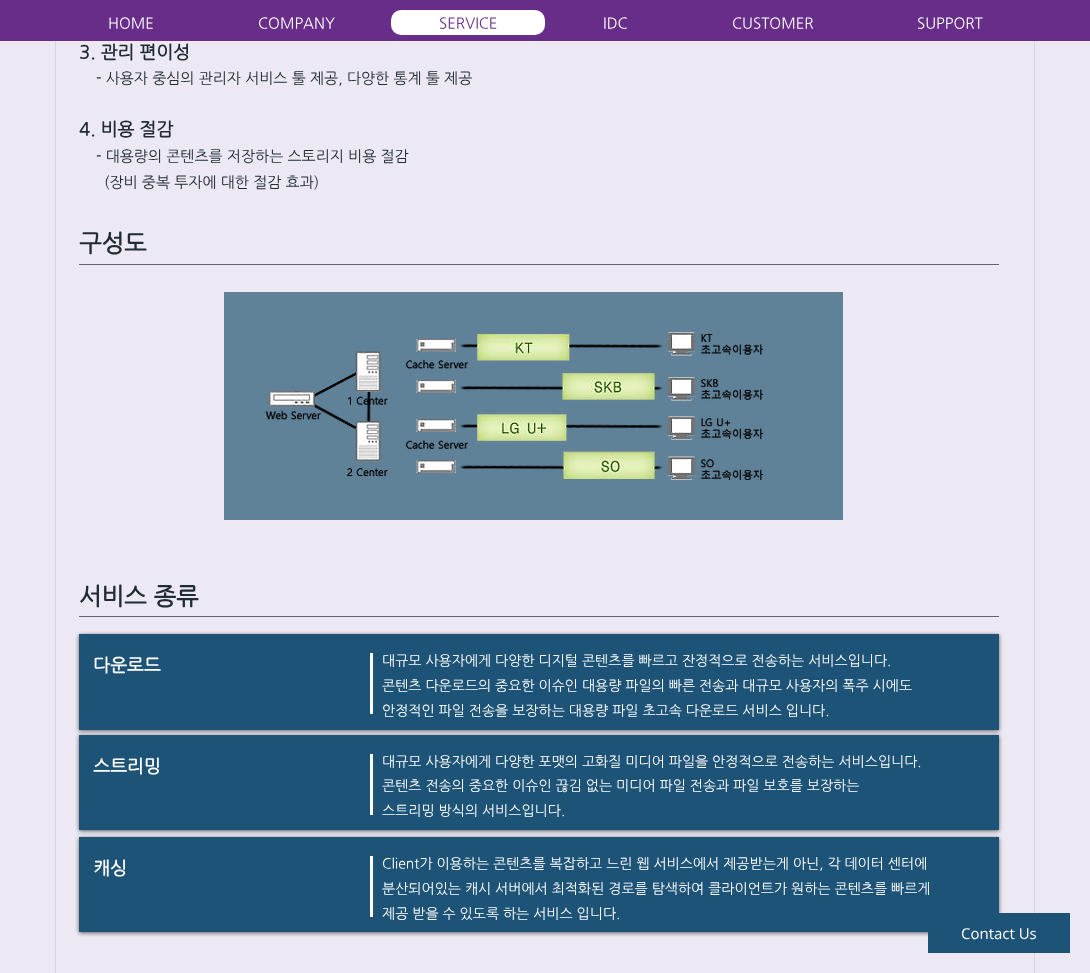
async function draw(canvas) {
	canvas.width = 1090;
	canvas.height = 973;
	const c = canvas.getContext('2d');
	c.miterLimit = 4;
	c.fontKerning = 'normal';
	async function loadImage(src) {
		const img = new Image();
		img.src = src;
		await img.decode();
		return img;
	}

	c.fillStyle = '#ece9f4';
	c.fillRect(0, 0, 1090, 973);
	c.strokeStyle = '#d4d6d7';
	c.strokeRect(55.5, -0.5, 979, 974);
	c.fillStyle = '#672d88';
	c.fillRect(0, 0, 1090, 41);
	c.font = '15px NanumGothic';
	c.fillStyle = '#fff';
	c.fillText('HOME', 108, 28);
	c.fillText('COMPANY', 258, 28);
	c.beginPath();
	c.roundRect(391, 10, 154, 25, 10);
	c.fill();
	c.fillStyle = '#672d88';
	c.fillText('SERVICE', 439, 28);
	c.fillStyle = '#fff';
	for (const [text, x, y] of [
		['IDC', 603, 28],
		['CUSTOMER', 732, 28],
		['SUPPORT', 917, 28],
	]) {
		c.fillText(text, x, y);
	}
	c.font = 'bold 18px NanumGothic';
	c.fillStyle = '#202b33';
	c.fillText('3. 관리 편이성', 79, 58);
	c.font = '15px NanumGothic';
	c.fillText('- 사용자 중심의 관리자 서비스 툴 제공, 다양한 통계 툴 제공', 96, 83);
	c.font = 'bold 18px NanumGothic';
	c.fillText('4. 비용 절감', 79, 135);
	c.font = '15px NanumGothic';
	c.fillText('- 대용량의 콘텐츠를 저장하는 스토리지 비용 절감', 96, 161);
	c.fillText('(장비 중복 투자에 대한 절감 효과)', 104, 187);
	c.font = 'bold 24px NanumGothic';
	c.fillText('구성도', 79, 251);
	c.fillStyle = '#636769';
	c.fillRect(79, 264, 920, 1);
	c.fillStyle = '#608299';
	c.fillRect(224, 292, 619, 228);
	c.drawImage(await loadImage('img1.png'), 265, 332, 499, 148);
	c.fillStyle = '#202b33';
	c.fillText('서비스 종류', 79, 604);
	c.fillStyle = '#636769';
	c.fillRect(79, 616, 920, 1);
	c.fillStyle = '#00000099';
	c.filter = 'blur(2px)';
	c.beginPath();
	c.rect(79, 635, 920, 96);
	c.fill();
	c.filter = 'none';
	c.fillStyle = '#1d5377';
	c.fillRect(79, 634, 920, 96);
	c.font = 'bold 18px NanumGothic';
	c.fillStyle = '#fff';
	c.fillText('다운로드', 93, 671);
	c.fillRect(370, 653, 3, 61);
	c.font = '14px NanumGothic';
	for (const [text, x, y] of [
		['대규모 사용자에게 다양한 디지털 콘텐츠를 빠르고 잔정적으로 전송하는 서비스입니다.', 382, 665],
		['콘텐츠 다운로드의 중요한 이슈인 대용량 파일의 빠른 전송과 대규모 사용자의 폭주 시에도', 382, 690],
		['안정적인 파일 전송을 보장하는 대용량 파일 초고속 다운로드 서비스 입니다.', 382, 715],
	]) {
		c.fillText(text, x, y);
	}
	c.fillStyle = '#00000099';
	c.filter = 'blur(2px)';
	c.beginPath();
	c.rect(79, 736, 920, 95);
	c.fill();
	c.filter = 'none';
	c.fillStyle = '#1d5377';
	c.fillRect(79, 735, 920, 95);
	c.font = 'bold 18px NanumGothic';
	c.fillStyle = '#fff';
	c.fillText('스트리밍', 93, 772);
	c.fillRect(370, 754, 3, 61);
	c.font = '14px NanumGothic';
	for (const [text, x, y] of [
		['대규모 사용자에게 다양한 포맷의 고화질 미디어 파일을 안정적으로 전송하는 서비스입니다.', 382, 766],
		['콘텐츠 전송의 중요한 이슈인 끊김 없는 미디어 파일 전송과 파일 보호를 보장하는', 382, 790],
		['스트리밍 방식의 서비스입니다.', 382, 815],
	]) {
		c.fillText(text, x, y);
	}
	c.fillStyle = '#00000099';
	c.filter = 'blur(2px)';
	c.beginPath();
	c.rect(79, 838, 920, 95);
	c.fill();
	c.filter = 'none';
	c.fillStyle = '#1d5377';
	c.fillRect(79, 837, 920, 95);
	c.font = 'bold 18px NanumGothic';
	c.fillStyle = '#fff';
	c.fillText('캐싱', 93, 874);
	c.fillRect(370, 856, 3, 61);
	c.font = '14px NanumGothic';
	for (const [text, x, y] of [
		['Client가 이용하는 콘텐츠를 복잡하고 느린 웹 서비스에서 제공받는게 아닌, 각 데이터 센터에', 382, 868],
		['분산되어있는 캐시 서버에서 최적화된 경로를 탐색하여 클라이언트가 원하는 콘텐츠를 빠르게', 382, 893],
		['제공 받을 수 있도록 하는 서비스 입니다.', 382, 918],
	]) {
		c.fillText(text, x, y);
	}
	c.fillStyle = '#1d5377';
	c.fillRect(928, 913, 142, 40);
	c.font = '15px Open Sans';
	c.fillStyle = '#fff';
	c.fillText('Contact Us', 961, 939);
}

draw(document.querySelector('canvas'));
